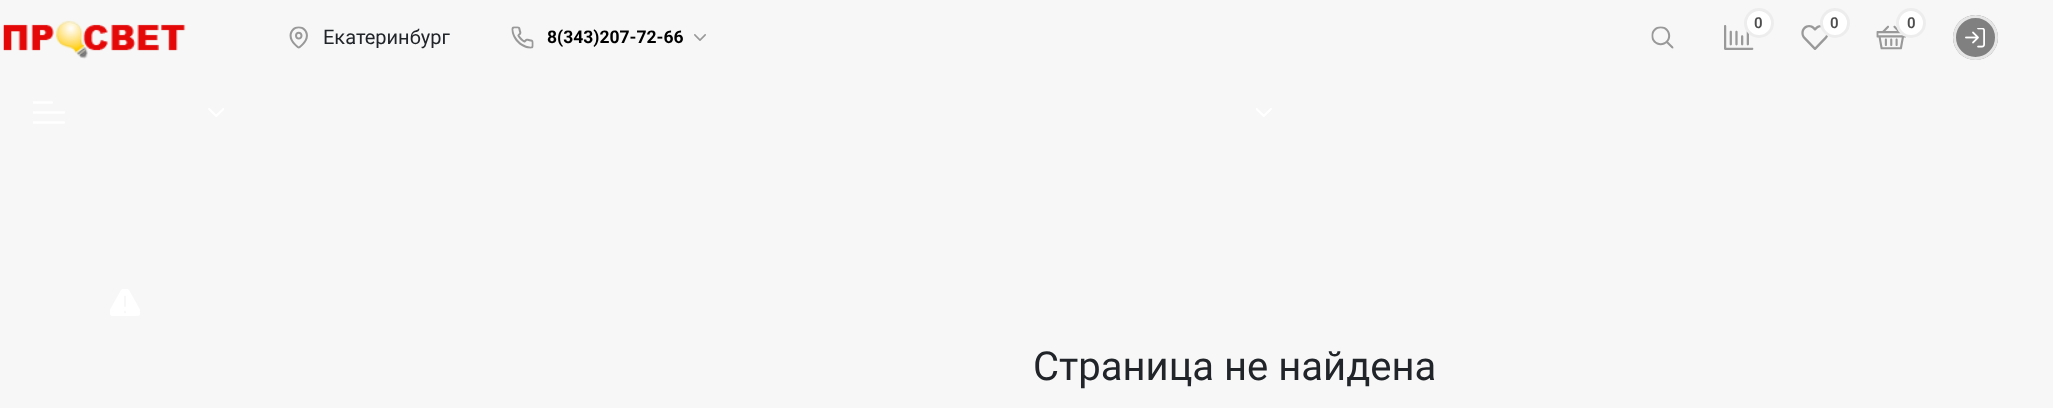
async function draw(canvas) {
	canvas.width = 2053;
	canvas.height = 408;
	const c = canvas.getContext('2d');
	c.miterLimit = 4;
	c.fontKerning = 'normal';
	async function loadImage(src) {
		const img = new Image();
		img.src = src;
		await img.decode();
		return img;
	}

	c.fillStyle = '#f7f7f7';
	c.fillRect(0, 0, 2053, 408);
	c.drawImage(await loadImage('img1.png'), 3, 20, 183, 39);
	c.drawImage(await loadImage('img2.png'), 289, 26, 19, 23);
	c.font = '20px Roboto';
	c.fillStyle = '#212529';
	c.fillText('Екатеринбург', 323, 44);
	c.drawImage(await loadImage('img3.png'), 511, 26, 23, 23);
	c.font = 'bold 17.5px Roboto';
	c.fillStyle = '#000';
	c.fillText('8(343)207-72-66', 547, 43);
	c.drawImage(await loadImage('img4.png'), 694, 34, 12, 7);
	c.drawImage(await loadImage('img5.png'), 1651, 26, 23, 23);
	c.drawImage(await loadImage('img6.png'), 1724, 25, 30, 25);
	c.fillStyle = '#fff';
	c.beginPath();
	c.arc(1759, 23, 13.5, 0, 2 * Math.PI);
	c.fill();
	c.strokeStyle = '#ededed';
	c.lineWidth = 3;
	c.stroke();
	c.font = '600 15px Roboto';
	c.fillStyle = '#4d4d4d';
	c.fillText('0', 1754, 28);
	c.drawImage(await loadImage('img7.png'), 1801, 25, 27, 25);
	c.fillStyle = '#fff';
	c.beginPath();
	c.arc(1835, 23, 13.5, 0, 2 * Math.PI);
	c.fill();
	c.stroke();
	c.fillStyle = '#4d4d4d';
	c.fillText('0', 1830, 28);
	c.drawImage(await loadImage('img8.png'), 1876, 25, 30, 25);
	c.fillStyle = '#fff';
	c.beginPath();
	c.arc(1911, 23, 13.5, 0, 2 * Math.PI);
	c.fill();
	c.stroke();
	c.fillStyle = '#4d4d4d';
	c.fillText('0', 1907, 28);
	c.fillStyle = '#808080';
	c.beginPath();
	c.arc(1975.5, 37.5, 22.5, 0, 2 * Math.PI);
	c.fill();
	c.drawImage(await loadImage('img9.png'), 1965, 28, 20, 20);
	c.beginPath();
	c.arc(1975.5, 37.5, 21, 0, 2 * Math.PI);
	c.strokeStyle = '#e6e6e6';
	c.stroke();
	c.drawImage(await loadImage('img10.png'), 33, 101, 32, 23);
	c.drawImage(await loadImage('img11.png'), 208, 108, 16, 9);
	c.drawImage(await loadImage('img12.png'), 1256, 108, 16, 9);
	c.drawImage(await loadImage('img13.png'), 110, 289, 30, 27);
	c.font = '40px Roboto';
	c.fillStyle = '#212529';
	c.fillText('Страница не найдена', 1033, 380);
}

draw(document.querySelector('canvas'));
